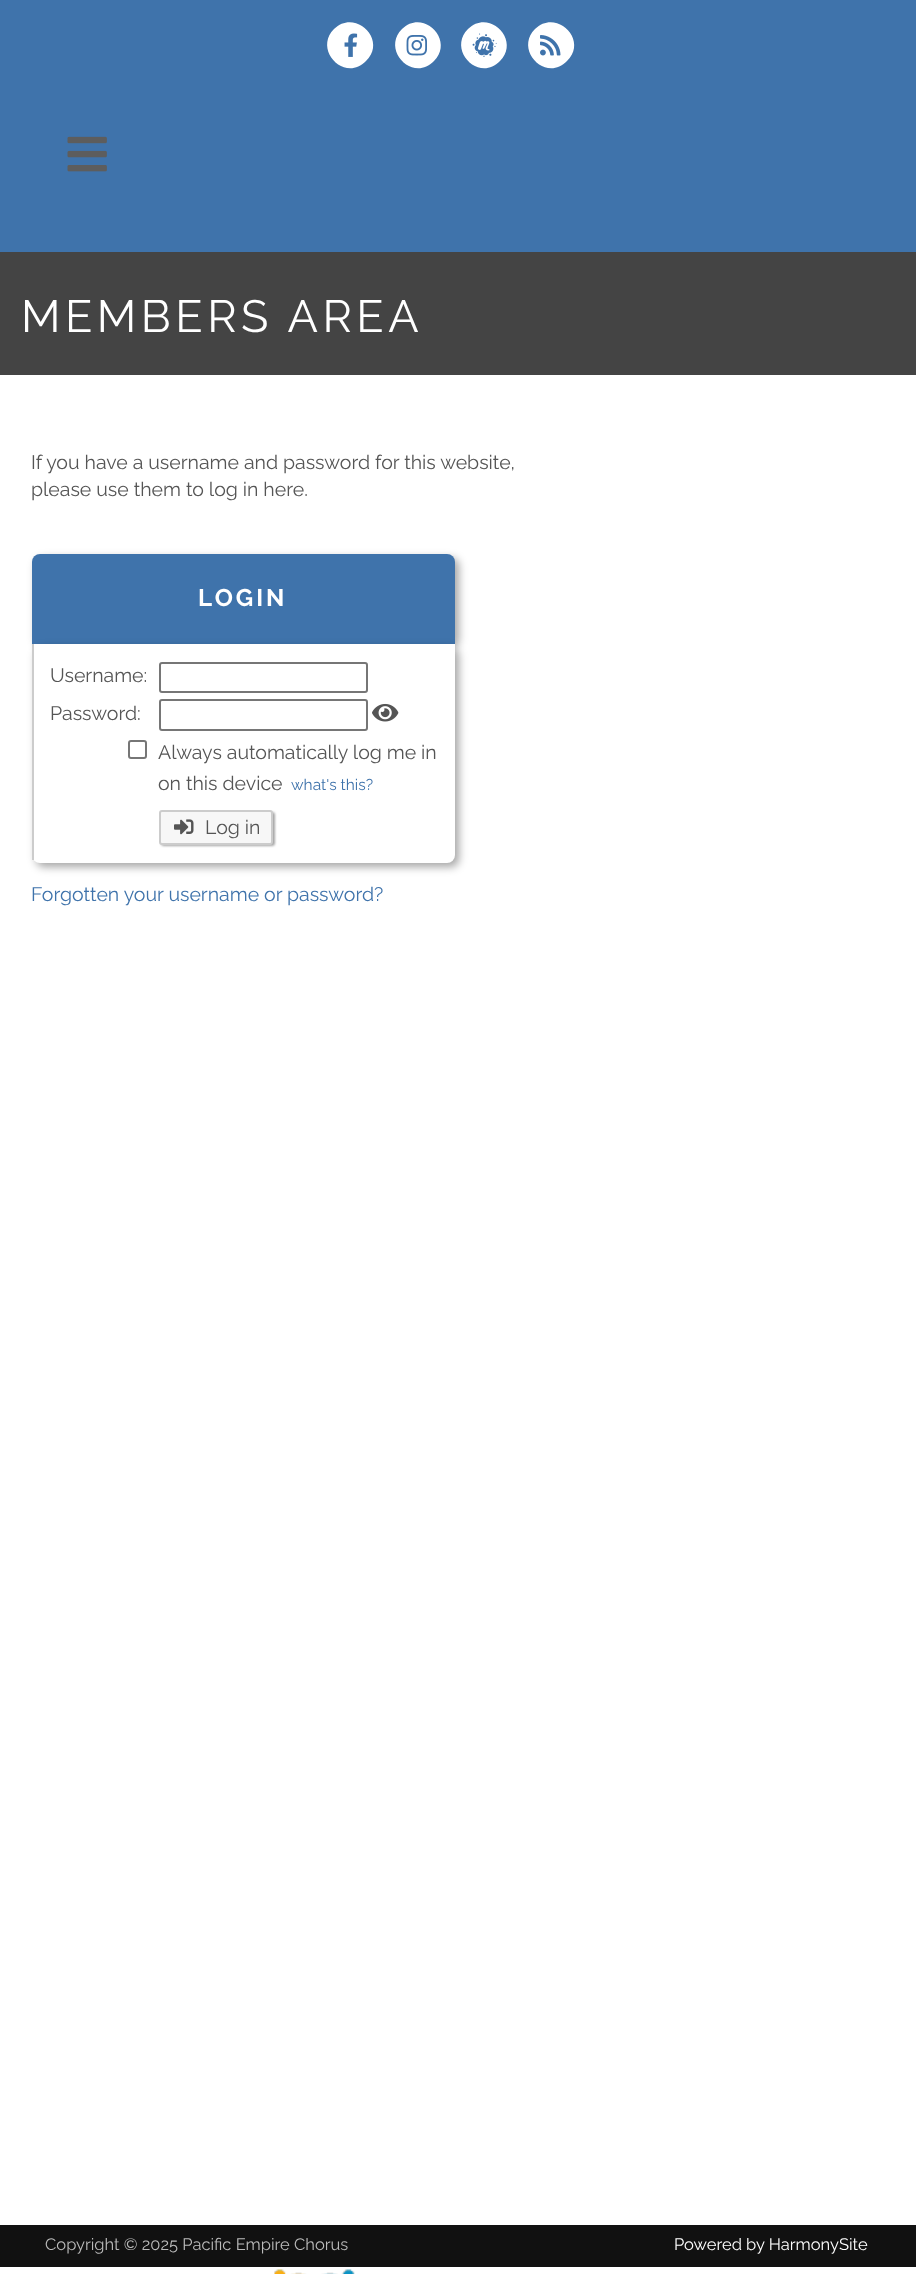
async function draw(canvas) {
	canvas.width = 916;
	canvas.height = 2274;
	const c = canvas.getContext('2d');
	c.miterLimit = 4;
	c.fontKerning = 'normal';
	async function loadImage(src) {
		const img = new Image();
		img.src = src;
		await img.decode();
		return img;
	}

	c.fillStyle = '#fff';
	c.fillRect(0, 0, 916, 2274);
	c.fillStyle = '#3f73ab';
	c.fillRect(0, 0, 916, 252);
	c.fillStyle = '#fff';
	c.beginPath();
	c.moveTo(334, 29);
	c.bezierCurveTo(355, 8, 388, 40, 366, 61);
	c.bezierCurveTo(345, 83, 313, 50, 334, 29);
	c.closePath();
	c.fill();
	c.drawImage(await loadImage('img1.png'), 344, 33, 14, 24);
	c.beginPath();
	c.moveTo(402, 29);
	c.bezierCurveTo(423, 8, 455, 40, 434, 61);
	c.bezierCurveTo(413, 83, 381, 50, 402, 29);
	c.closePath();
	c.fill();
	c.drawImage(await loadImage('img2.png'), 406, 35, 21, 21);
	c.beginPath();
	c.moveTo(468, 29);
	c.bezierCurveTo(489, 8, 521, 40, 500, 61);
	c.bezierCurveTo(479, 83, 447, 50, 468, 29);
	c.closePath();
	c.fill();
	c.drawImage(await loadImage('img3.png'), 472, 33, 25, 24);
	c.beginPath();
	c.moveTo(535, 29);
	c.bezierCurveTo(556, 8, 589, 40, 567, 61);
	c.bezierCurveTo(546, 83, 514, 50, 535, 29);
	c.closePath();
	c.fill();
	c.drawImage(await loadImage('img4.png'), 540, 35, 21, 21);
	c.drawImage(await loadImage('img5.png'), 67, 136, 40, 36);
	c.fillStyle = '#444';
	c.fillRect(0, 252, 916, 123);
	c.letterSpacing = '4.5px';
	c.font = '45px Raleway';
	c.fillStyle = '#fff';
	c.fillText('MEMBERS AREA', 21, 332);
	c.letterSpacing = '0px';
	c.font = '19.5px Raleway';
	c.fillStyle = '#555';
	c.fillText('If you have a username and password for this website,', 31, 469);
	c.fillText('please use them to log in here.', 31, 496);
	c.fillStyle = '#00000059';
	c.filter = 'blur(4px)';
	c.beginPath();
	c.roundRect(36, 558, 423, 90, 8);
	c.fill();
	c.filter = 'none';
	c.fillStyle = '#3f73ab';
	c.beginPath();
	c.roundRect(32, 554, 423, 90, [8, 8, 0, 0]);
	c.fill();
	c.letterSpacing = '3px';
	c.font = 'bold 24px Raleway';
	c.fillStyle = '#fff';
	c.fillText('LOGIN', 198, 606);
	c.fillStyle = '#00000059';
	c.filter = 'blur(4px)';
	c.beginPath();
	c.roundRect(36, 648, 423, 219, 8);
	c.fill();
	c.filter = 'none';
	c.fillStyle = '#fff';
	c.beginPath();
	c.roundRect(32, 644, 423, 219, [0, 0, 8, 8]);
	c.fill();
	c.fillStyle = '#ccc';
	c.fillRect(32, 644, 2, 216);
	c.letterSpacing = '0px';
	c.font = '19.5px Raleway';
	c.fillStyle = '#555';
	c.fillText('Username:', 50, 682);
	c.beginPath();
	c.roundRect(160, 663, 207, 29, 2);
	c.strokeStyle = '#767676';
	c.lineWidth = 2;
	c.stroke();
	c.fillText('Password:', 50, 720);
	c.beginPath();
	c.roundRect(160, 700, 207, 30, 2);
	c.stroke();
	c.drawImage(await loadImage('img6.png'), 372, 703, 27, 19);
	c.beginPath();
	c.roundRect(129, 741, 17, 17, 2);
	c.stroke();
	c.fillText('Always automatically log me in', 158, 759);
	c.fillText('on this device', 158, 790);
	c.font = '15.5px Raleway';
	c.fillStyle = '#3f73ab';
	c.fillText('what\'s this?', 291, 790);
	c.fillStyle = '#00000059';
	c.filter = 'blur(1px)';
	c.beginPath();
	c.roundRect(161, 812, 114, 34, 3);
	c.fill();
	c.filter = 'none';
	c.fillStyle = '#f7f7f7';
	c.beginPath();
	c.roundRect(160, 811, 112, 33, 2);
	c.fill();
	c.strokeStyle = '#ccc';
	c.stroke();
	c.drawImage(await loadImage('img7.png'), 174, 819, 20, 16);
	c.font = '19.5px Raleway';
	c.fillStyle = '#555';
	c.fillText('Log in', 205, 834);
	c.fillStyle = '#3f73ab';
	c.fillText('Forgotten your username or password?', 31, 901);
	c.fillStyle = '#111';
	c.fillRect(0, 2225, 916, 42);
	c.font = '16.5px Raleway';
	c.fillStyle = '#bbb';
	c.fillText('Copyright © 2025 Pacific Empire Chorus', 45, 2250);
	c.fillStyle = '#fff';
	c.fillText('Powered by HarmonySite', 674, 2250);
	c.drawImage(await loadImage('img8.png'), 274, 2269, 81, 5);
}

draw(document.querySelector('canvas'));
